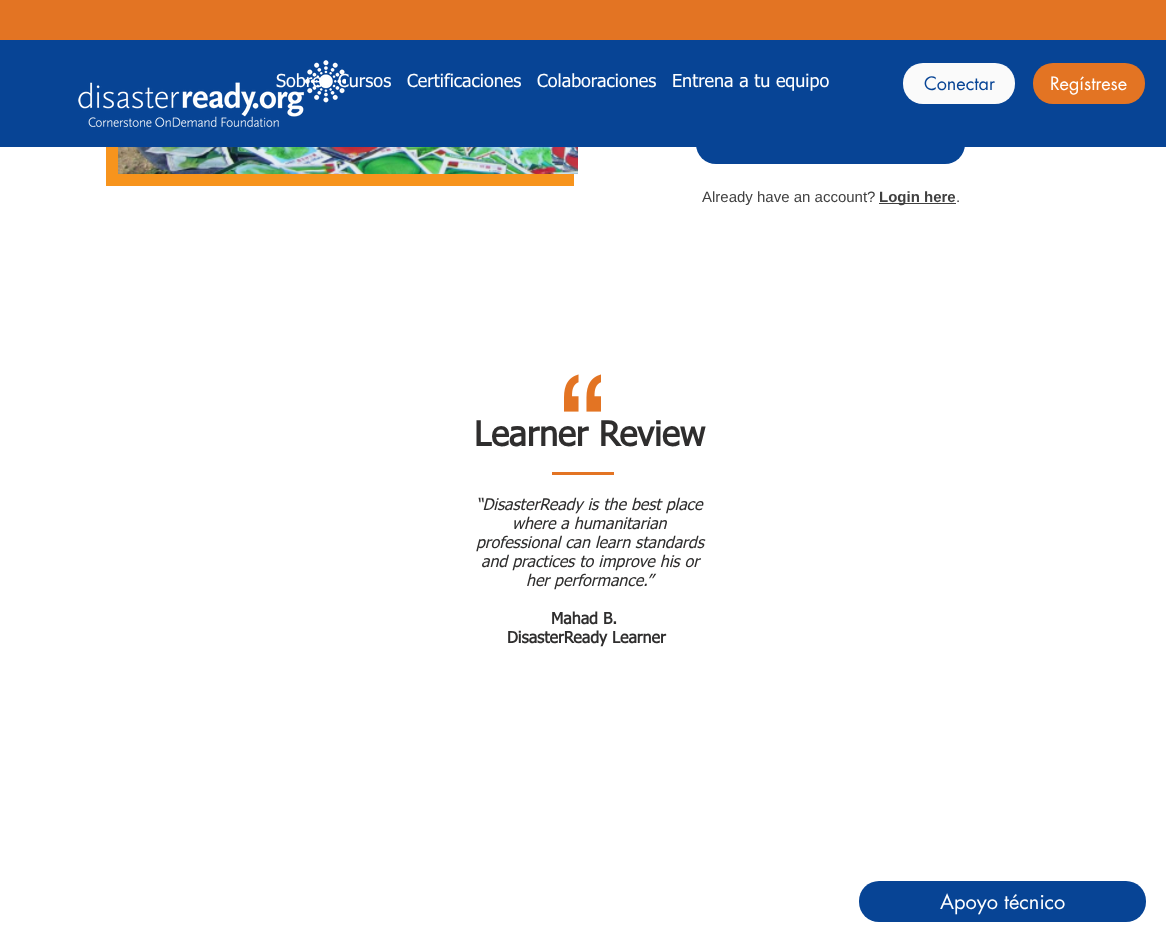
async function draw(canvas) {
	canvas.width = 1166;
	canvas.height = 942;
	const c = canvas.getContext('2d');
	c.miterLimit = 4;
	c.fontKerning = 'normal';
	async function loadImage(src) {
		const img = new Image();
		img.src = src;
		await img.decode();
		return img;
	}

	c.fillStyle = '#fff';
	c.fillRect(0, 0, 1166, 942);
	c.fillStyle = '#f7941d';
	c.beginPath();
	c.moveTo(106, -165);
	c.lineTo(106, 186);
	c.lineTo(574, 186);
	c.lineTo(574, 174);
	c.lineTo(118, 174);
	c.lineTo(118, -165);
	c.closePath();
	c.fill();
	c.fillStyle = '#074495';
	c.beginPath();
	c.roundRect(696, 122, 269, 42, 20);
	c.fill();
	c.fillRect(0, 40, 1166, 107);
	c.font = '18px tahoma';
	c.fillStyle = '#fff';
	c.fillText('Sobre', 276, 87);
	c.fillText('Cursos', 338, 87);
	c.drawImage(await loadImage('img1.png'), 78, 60, 268, 67);
	c.fillStyle = '#e37423';
	c.fillRect(0, 0, 1166, 40);
	c.fillStyle = '#fff';
	for (const [text, x, y] of [
		['Certificaciones', 407, 87],
		['Colaboraciones', 537, 87],
		['Entrena a tu equipo', 672, 87],
	]) {
		c.fillText(text, x, y);
	}
	c.fillStyle = '#fafafa';
	c.beginPath();
	c.roundRect(903, 63, 112, 41, 20);
	c.fill();
	c.font = '18px futura';
	c.fillStyle = '#074495';
	c.fillText('Conectar', 924, 90);
	c.fillStyle = '#e37423';
	c.beginPath();
	c.roundRect(1033, 63, 112, 41, 20);
	c.fill();
	c.fillStyle = '#fff';
	c.fillText('Regístrese', 1050, 90);
	c.drawImage(await loadImage('img2.png'), 118, 147, 460, 27);
	c.font = '15px Liberation Sans';
	c.fillStyle = '#404040';
	c.fillText('Already have an account?', 702, 202);
	c.fillRect(879, 203, 77, 1);
	c.font = 'bold 15px Liberation Sans';
	c.fillText('Login here', 879, 202);
	c.font = '15px Liberation Sans';
	c.fillText('.', 956, 202);
	c.drawImage(await loadImage('img3.png'), 564, 374, 37, 38);
	c.font = 'bold 34px tahoma';
	c.fillStyle = '#2f2e2e';
	c.fillText('Learner Review', 474, 446);
	c.fillStyle = '#e37423';
	c.fillRect(552, 472, 62, 3);
	c.font = 'italic 16px tahoma';
	c.fillStyle = '#2f2e2e';
	for (const [text, x, y] of [
		['“DisasterReady is the best place', 476, 510],
		['where a humanitarian', 512, 529],
		['professional can learn standards', 476, 548],
		['and practices to improve his or', 481, 567],
		['her performance.”', 526, 586],
	]) {
		c.fillText(text, x, y);
	}
	c.font = 'bold 16px tahoma';
	c.fillText('Mahad B.', 551, 624);
	c.fillText('DisasterReady Learner', 507, 643);
	c.fillStyle = '#074495';
	c.beginPath();
	c.roundRect(859, 881, 287, 41, 20);
	c.fill();
	c.font = '20px futura';
	c.fillStyle = '#fff';
	c.fillText('Apoyo técnico', 940, 909);
}

draw(document.querySelector('canvas'));
